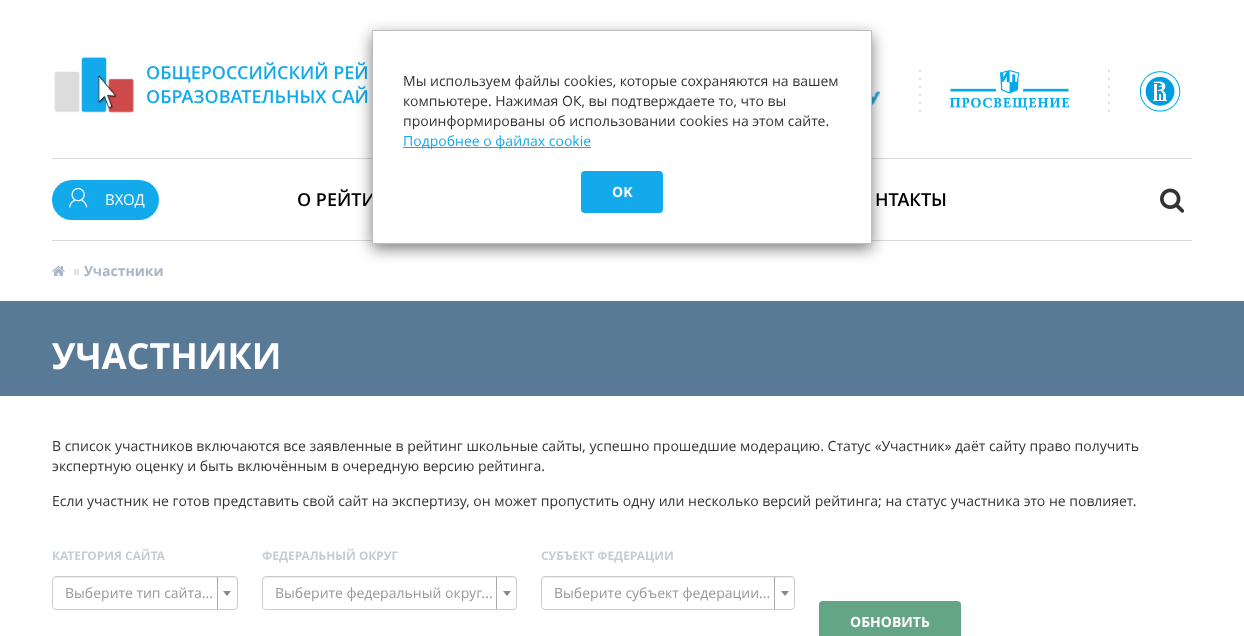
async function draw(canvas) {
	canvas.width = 1244;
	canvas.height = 636;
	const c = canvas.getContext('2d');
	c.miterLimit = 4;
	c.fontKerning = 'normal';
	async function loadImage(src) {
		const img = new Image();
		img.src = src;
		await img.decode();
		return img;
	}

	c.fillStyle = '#fff';
	c.fillRect(0, 0, 1244, 636);
	c.drawImage(await loadImage('img1.png'), 54, 57, 80, 56);
	c.font = '600 18px Open Sans';
	c.fillStyle = '#12aaeb';
	c.fillText('ОБЩЕРОССИЙСКИЙ РЕЙ', 146, 79);
	c.fillText('ОБРАЗОВАТЕЛЬНЫХ САЙ', 146, 103);
	c.drawImage(await loadImage('img2.png'), 872, 91, 8, 15);
	c.drawImage(await loadImage('img3.png'), 919, 70, 2, 42);
	c.drawImage(await loadImage('img4.png'), 950, 70, 119, 40);
	c.drawImage(await loadImage('img3.png'), 1108, 70, 2, 42);
	c.drawImage(await loadImage('img5.png'), 1140, 71, 41, 41);
	c.fillStyle = '#d7d7d7';
	c.fillRect(52, 158, 1140, 1);
	c.fillRect(52, 240, 1140, 1);
	c.fillStyle = '#00000080';
	c.filter = 'blur(7.5px)';
	c.beginPath();
	c.rect(372, 35, 500, 214);
	c.fill();
	c.filter = 'none';
	c.fillStyle = '#000';
	c.fillText('О РЕЙТИ', 297, 206);
	c.fillStyle = '#fff';
	c.beginPath();
	c.rect(372.5, 30.5, 499, 213);
	c.fill();
	c.strokeStyle = '#bebebe';
	c.stroke();
	c.font = '14px Open Sans';
	c.fillStyle = '#333';
	for (const [text, x, y] of [
		['Мы используем файлы cookies, которые сохраняются на вашем', 403, 86],
		['компьютере. Нажимая ОК, вы подтверждаете то, что вы', 403, 106],
		['проинформированы об использовании cookies на этом сайте.', 403, 126],
	]) {
		c.fillText(text, x, y);
	}
	c.fillStyle = '#12aaeb';
	c.fillRect(403, 147, 188, 1);
	c.fillText('Подробнее о файлах cookie', 403, 146);
	c.beginPath();
	c.roundRect(581, 171, 82, 42, 4);
	c.fill();
	c.font = 'bold 14px Open Sans';
	c.fillStyle = '#fff';
	c.fillText('OK', 612, 197);
	c.fillStyle = '#12aaeb';
	c.beginPath();
	c.roundRect(52, 180, 107, 40, 20);
	c.fill();
	c.drawImage(await loadImage('img6.png'), 69, 187, 19, 21);
	c.font = '15px Open Sans';
	c.fillStyle = '#fff';
	c.fillText('ВХОД', 105, 205);
	c.font = '600 18px Open Sans';
	c.fillStyle = '#000';
	c.fillText('НТАКТЫ', 875, 206);
	c.drawImage(await loadImage('img7.png'), 1160, 188, 25, 25);
	c.drawImage(await loadImage('img8.png'), 52, 266, 13, 10);
	c.fillStyle = '#e3e7eb';
	c.fillRect(74, 269, 5, 6);
	c.font = 'bold 14px Open Sans';
	c.fillStyle = '#a9b7c8';
	c.fillText('Участники', 84, 276);
	c.fillStyle = '#597a96';
	c.fillRect(0, 301, 1244, 95);
	c.font = 'bold 36px Open Sans';
	c.fillStyle = '#fff';
	c.fillText('УЧАСТНИКИ', 52, 369);
	c.font = '14px Open Sans';
	c.fillStyle = '#333';
	for (const [text, x, y] of [
		['В список участников включаются все заявленные в рейтинг школьные сайты, успешно прошедшие модерацию. Статус «Участник» даёт сайту право получить', 52, 451],
		['экспертную оценку и быть включённым в очередную версию рейтинга.', 52, 471],
		['Если участник не готов представить свой сайт на экспертизу, он может пропустить одну или несколько версий рейтинга; на статус участника это не повлияет.', 52, 506],
	]) {
		c.fillText(text, x, y);
	}
	c.font = 'bold 11.9px Open Sans';
	c.fillStyle = '#c6ccd2';
	c.fillText('КАТЕГОРИЯ САЙТА', 52, 560);
	c.fillStyle = '#ececec';
	c.beginPath();
	c.moveTo(56, 578);
	c.lineTo(235, 578);
	c.lineTo(236, 579);
	c.lineTo(237, 581);
	c.bezierCurveTo(237, 579, 236, 577, 234, 577);
	c.lineTo(55, 577);
	c.bezierCurveTo(53, 578, 53, 579, 53, 581);
	c.bezierCurveTo(53, 579, 54, 578, 56, 578);
	c.closePath();
	c.fill();
	c.beginPath();
	c.roundRect(52.5, 576.5, 185, 33, 3.5);
	c.strokeStyle = '#ccc';
	c.stroke();
	c.font = '14px Open Sans';
	c.fillStyle = '#999';
	c.fillText('Выберите тип сайта...', 65, 598);
	c.fillStyle = '#aaa';
	c.fillRect(217, 577, 1, 32);
	c.fillStyle = '#888';
	c.beginPath();
	c.moveTo(223, 591);
	c.lineTo(231, 591);
	c.lineTo(227, 596);
	c.closePath();
	c.fill();
	c.font = 'bold 11.9px Open Sans';
	c.fillStyle = '#c6ccd2';
	c.fillText('ФЕДЕРАЛЬНЫЙ ОКРУГ', 262, 560);
	c.fillStyle = '#ececec';
	c.beginPath();
	c.moveTo(266, 578);
	c.lineTo(514, 578);
	c.lineTo(516, 579);
	c.lineTo(516, 581);
	c.bezierCurveTo(516, 579, 515, 577, 513, 577);
	c.lineTo(266, 577);
	c.bezierCurveTo(264, 577, 263, 579, 263, 581);
	c.bezierCurveTo(263, 579, 264, 578, 266, 578);
	c.closePath();
	c.fill();
	c.beginPath();
	c.roundRect(262.5, 576.5, 254, 33, 3.5);
	c.stroke();
	c.font = '14px Open Sans';
	c.fillStyle = '#999';
	c.fillText('Выберите федеральный округ...', 275, 598);
	c.fillStyle = '#aaa';
	c.fillRect(496, 577, 1, 32);
	c.fillStyle = '#888';
	c.beginPath();
	c.moveTo(503, 591);
	c.lineTo(511, 591);
	c.lineTo(507, 596);
	c.closePath();
	c.fill();
	c.font = 'bold 11.9px Open Sans';
	c.fillStyle = '#c6ccd2';
	c.fillText('СУБЪЕКТ ФЕДЕРАЦИИ', 541, 560);
	c.fillStyle = '#ececec';
	c.beginPath();
	c.moveTo(545, 578);
	c.lineTo(792, 578);
	c.lineTo(794, 579);
	c.lineTo(794, 581);
	c.bezierCurveTo(794, 579, 793, 577, 791, 577);
	c.lineTo(545, 577);
	c.bezierCurveTo(543, 577, 542, 579, 542, 581);
	c.bezierCurveTo(542, 579, 543, 578, 545, 578);
	c.closePath();
	c.fill();
	c.beginPath();
	c.roundRect(541.5, 576.5, 253, 33, 3.5);
	c.stroke();
	c.font = '14px Open Sans';
	c.fillStyle = '#999';
	c.fillText('Выберите субъект федерации...', 554, 598);
	c.fillStyle = '#aaa';
	c.fillRect(774, 577, 1, 32);
	c.fillStyle = '#888';
	c.beginPath();
	c.moveTo(781, 591);
	c.lineTo(789, 591);
	c.lineTo(785, 596);
	c.closePath();
	c.fill();
	c.fillStyle = '#63a585';
	c.beginPath();
	c.roundRect(819, 601, 142, 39, 4);
	c.fill();
	c.font = 'bold 14px Open Sans';
	c.fillStyle = '#fff';
	c.fillText('ОБНОВИТЬ', 850, 627);
}

draw(document.querySelector('canvas'));
